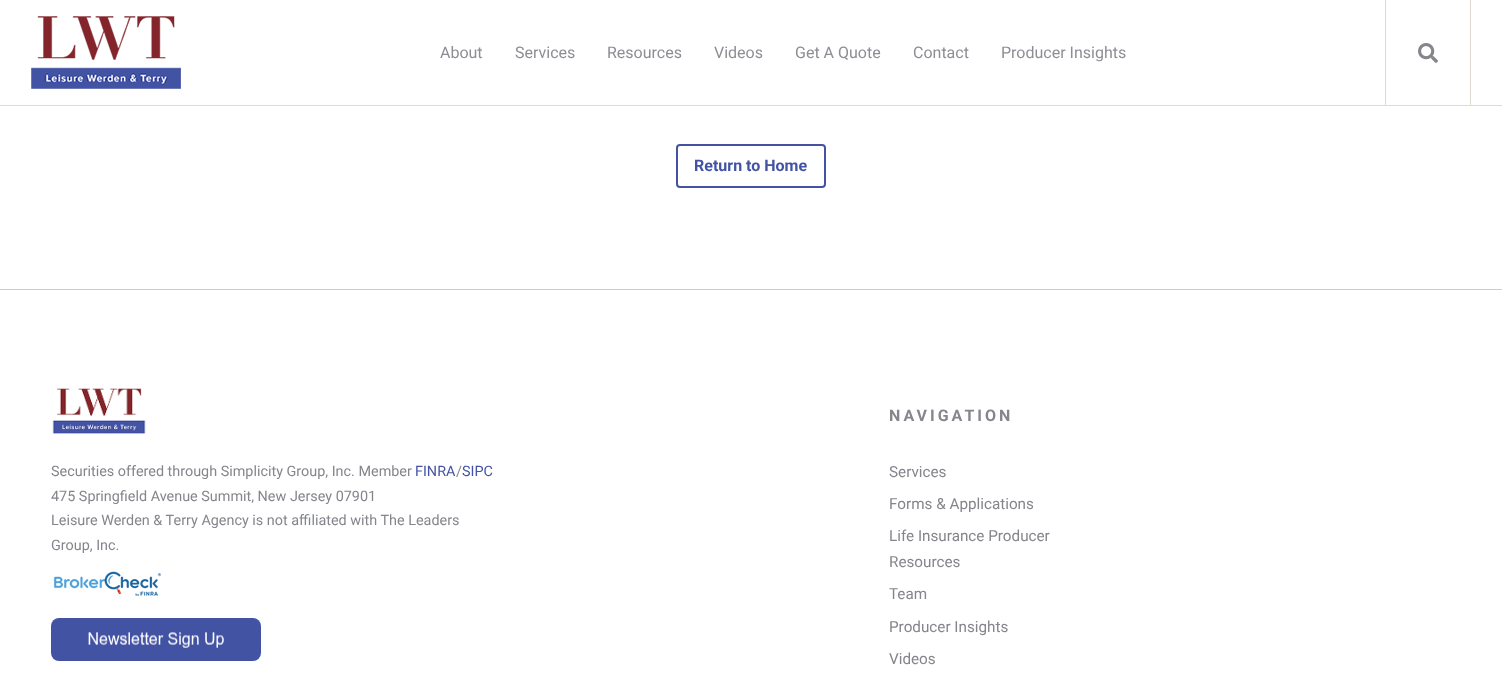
async function draw(canvas) {
	canvas.width = 1502;
	canvas.height = 680;
	const c = canvas.getContext('2d');
	c.miterLimit = 4;
	c.fontKerning = 'normal';
	async function loadImage(src) {
		const img = new Image();
		img.src = src;
		await img.decode();
		return img;
	}

	c.fillStyle = '#fff';
	c.fillRect(0, 0, 1502, 680);
	c.fillStyle = '#dfdbd2';
	c.fillRect(0, 105, 1502, 1);
	c.drawImage(await loadImage('img1.png'), 31, 16, 150, 73);
	c.font = '16px Roboto';
	c.fillStyle = '#8d8d94';
	for (const [text, x, y] of [
		['About', 440, 58],
		['Services', 515, 58],
		['Resources', 607, 58],
		['Videos', 714, 58],
		['Get A Quote', 795, 58],
		['Contact', 913, 58],
		['Producer Insights', 1001, 58],
	]) {
		c.fillText(text, x, y);
	}
	c.fillStyle = '#dfdbd2';
	c.fillRect(1470, 0, 1, 105);
	c.fillRect(1385, 0, 1, 105);
	c.drawImage(await loadImage('img2.png'), 1418, 43, 20, 20);
	c.beginPath();
	c.roundRect(677, 145, 148, 42, 3);
	c.strokeStyle = '#4353a4';
	c.lineWidth = 2;
	c.stroke();
	c.font = 'bold 16px Roboto';
	c.fillStyle = '#4353a4';
	c.fillText('Return to Home', 694, 171);
	c.fillStyle = '#ccc';
	c.fillRect(0, 289, 1502, 1);
	c.drawImage(await loadImage('img3.png'), 52, 388, 94, 46);
	c.font = '14.4px Roboto';
	c.fillStyle = '#85868c';
	c.fillText('Securities offered through Simplicity Group, Inc. Member', 51, 476);
	c.fillStyle = '#4353a4';
	c.fillText('FINRA', 415, 476);
	c.fillStyle = '#85868c';
	c.fillText('/', 456, 476);
	c.fillStyle = '#4353a4';
	c.fillText('SIPC', 462, 476);
	c.fillStyle = '#85868c';
	for (const [text, x, y] of [
		['475 Springfield Avenue Summit, New Jersey 07901', 51, 501],
		['Leisure Werden & Terry Agency is not affiliated with The Leaders', 51, 525],
		['Group, Inc.', 51, 550],
	]) {
		c.fillText(text, x, y);
	}
	c.drawImage(await loadImage('img4.png'), 53, 571, 109, 25);
	c.drawImage(await loadImage('img5.png'), 51, 618, 210, 43);
	c.letterSpacing = '3px';
	c.font = 'bold 16px Roboto';
	c.fillText('NAVIGATION', 889, 421);
	c.letterSpacing = '0px';
	c.font = '15.25px Roboto';
	for (const [text, x, y] of [
		['Services', 889, 477],
		['Forms & Applications', 889, 509],
		['Life Insurance Producer', 889, 541],
		['Resources', 889, 567],
		['Team', 889, 599],
		['Producer Insights', 889, 632],
		['Videos', 889, 664],
	]) {
		c.fillText(text, x, y);
	}
}

draw(document.querySelector('canvas'));
